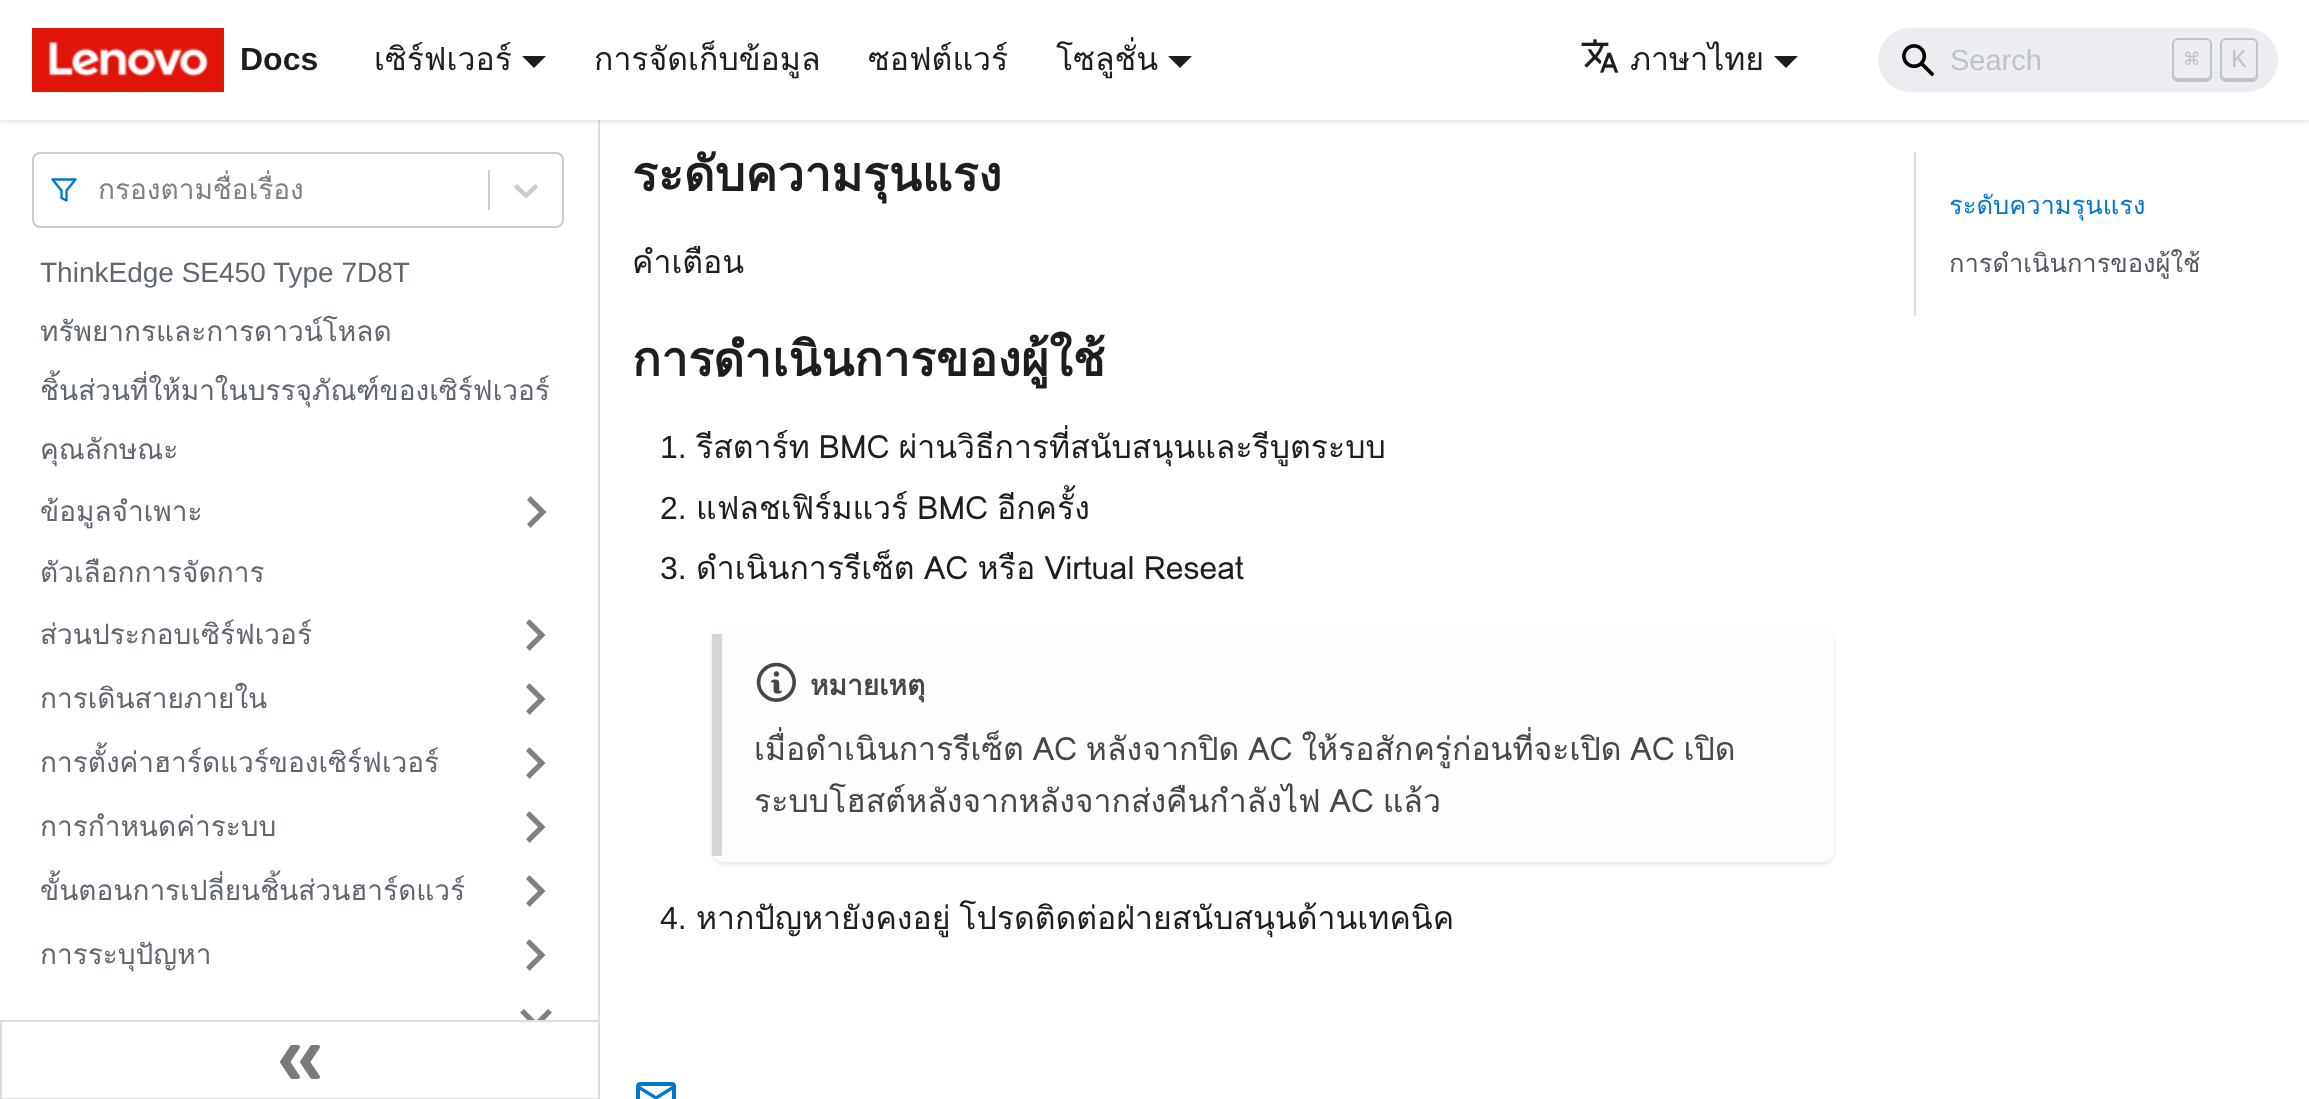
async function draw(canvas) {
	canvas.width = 2309;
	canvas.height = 1099;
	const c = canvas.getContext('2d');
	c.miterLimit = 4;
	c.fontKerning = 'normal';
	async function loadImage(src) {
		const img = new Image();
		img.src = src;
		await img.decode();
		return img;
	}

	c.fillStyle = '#fff';
	c.fillRect(0, 0, 2309, 1099);
	c.fillStyle = '#dadde1';
	c.fillRect(598, 120, 2, 900);
	c.fillStyle = '#0000001a';
	c.filter = 'blur(2px)';
	c.beginPath();
	c.rect(0, 2, 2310, 120);
	c.fill();
	c.filter = 'none';
	c.fillStyle = '#fff';
	c.fillRect(0, 0, 2309, 120);
	c.drawImage(await loadImage('img1.png'), 32, 28, 192, 64);
	c.font = 'bold 32px Liberation Sans';
	c.fillStyle = '#1c1e21';
	c.fillText('Docs', 240, 70);
	c.font = '32px Loma';
	c.fillText('เซิร์ฟเวอร์', 374, 70);
	c.beginPath();
	c.moveTo(522, 56);
	c.lineTo(546, 56);
	c.lineTo(534, 68);
	c.closePath();
	c.fill();
	for (const [text, x, y] of [
		['การจัดเก็บข้อมูล', 594, 70],
		['ซอฟต์แวร์', 868, 70],
		['โซลูชั่น', 1056, 70],
	]) {
		c.fillText(text, x, y);
	}
	c.beginPath();
	c.moveTo(1168, 56);
	c.lineTo(1192, 56);
	c.lineTo(1180, 68);
	c.closePath();
	c.fill();
	c.drawImage(await loadImage('img2.png'), 1581, 39, 38, 34);
	c.fillText('ภาษาไทย', 1630, 70);
	c.beginPath();
	c.moveTo(1774, 56);
	c.lineTo(1798, 56);
	c.lineTo(1786, 68);
	c.closePath();
	c.fill();
	c.fillStyle = '#ebedf0';
	c.beginPath();
	c.roundRect(1878, 28, 400, 64, 32);
	c.fill();
	c.drawImage(await loadImage('img3.png'), 1902, 44, 32, 32);
	c.font = '29px Liberation Sans';
	c.fillStyle = '#bec3c9';
	c.fillText('Search', 1950, 70);
	c.beginPath();
	c.moveTo(2174, 74);
	c.bezierCurveTo(2174, 80.5, 2176.5, 80, 2182.5, 80);
	c.lineTo(2201.5, 80);
	c.bezierCurveTo(2207.5, 80, 2210, 80.5, 2210, 74);
	c.bezierCurveTo(2210, 76, 2208, 78, 2206, 78);
	c.lineTo(2178, 78);
	c.bezierCurveTo(2176, 78, 2174, 76, 2174, 74);
	c.closePath();
	c.fill();
	c.beginPath();
	c.roundRect(2173, 39, 38, 42, 5);
	c.strokeStyle = '#bec3c9';
	c.lineWidth = 2;
	c.stroke();
	c.font = '25.5px DejaVu Sans Mono';
	c.fillText('⌘', 2184, 68);
	c.beginPath();
	c.moveTo(2222, 74);
	c.bezierCurveTo(2222, 80.5, 2224.5, 80, 2230.5, 80);
	c.lineTo(2247.5, 80);
	c.bezierCurveTo(2253.5, 80, 2256, 80.5, 2256, 74);
	c.bezierCurveTo(2256, 76, 2254, 78, 2252, 78);
	c.lineTo(2226, 78);
	c.bezierCurveTo(2224, 78, 2222, 76, 2222, 74);
	c.closePath();
	c.fill();
	c.beginPath();
	c.roundRect(2221, 39, 36, 42, 5);
	c.stroke();
	c.font = '25.5px Liberation Mono';
	c.fillText('K', 2231, 67);
	c.beginPath();
	c.roundRect(33, 153, 530, 74, 7);
	c.strokeStyle = '#ccc';
	c.stroke();
	c.beginPath();
	c.moveTo(75.5, 179.5);
	c.lineTo(52.5, 179.5);
	c.lineTo(61.5, 190.5);
	c.lineTo(61.5, 198);
	c.lineTo(66.5, 200.5);
	c.lineTo(66.5, 190.5);
	c.closePath();
	c.strokeStyle = '#0078d0';
	c.lineWidth = 2.3;
	c.lineCap = 'round';
	c.lineJoin = 'round';
	c.stroke();
	c.font = '28px Loma';
	c.fillStyle = '#808080';
	c.fillText('กรองตามชื่อเรื่อง', 98, 199);
	c.fillStyle = '#ccc';
	c.fillRect(488, 170, 2, 40);
	c.drawImage(await loadImage('img4.png'), 514, 184, 24, 14);
	c.font = '28px Liberation Sans';
	c.fillStyle = '#606770';
	c.fillText('ThinkEdge SE450 Type 7D8T', 40, 282);
	c.font = '28px Loma';
	for (const [text, x, y] of [
		['ทรัพยากรและการดาวน์โหลด', 40, 341],
		['ชิ้นส่วนที่ให้มาในบรรจุภัณฑ์ของเซิร์ฟเวอร์', 40, 400],
		['คุณลักษณะ', 40, 459],
		['ข้อมูลจำเพาะ', 40, 521],
	]) {
		c.fillText(text, x, y);
	}
	c.fillStyle = '#808080';
	c.beginPath();
	c.moveTo(527, 500);
	c.lineTo(539, 512);
	c.lineTo(527, 524);
	c.lineTo(530.5, 528);
	c.lineTo(546.5, 512);
	c.lineTo(530.5, 496);
	c.closePath();
	c.fill();
	c.fillStyle = '#606770';
	c.fillText('ตัวเลือกการจัดการ', 40, 582);
	c.fillText('ส่วนประกอบเซิร์ฟเวอร์', 40, 644);
	c.fillStyle = '#808080';
	c.beginPath();
	c.moveTo(526, 623);
	c.lineTo(538, 635);
	c.lineTo(526, 647);
	c.lineTo(529.5, 651);
	c.lineTo(545.5, 635);
	c.lineTo(529.5, 619);
	c.closePath();
	c.fill();
	c.fillStyle = '#606770';
	c.fillText('การเดินสายภายใน', 40, 708);
	c.fillStyle = '#808080';
	c.beginPath();
	c.moveTo(526, 687);
	c.lineTo(538, 699);
	c.lineTo(526, 711);
	c.lineTo(529.5, 715);
	c.lineTo(545.5, 699);
	c.lineTo(529.5, 683);
	c.closePath();
	c.fill();
	c.fillStyle = '#606770';
	c.fillText('การตั้งค่าฮาร์ดแวร์ของเซิร์ฟเวอร์', 40, 772);
	c.fillStyle = '#808080';
	c.beginPath();
	c.moveTo(526, 751);
	c.lineTo(538, 763);
	c.lineTo(526, 775);
	c.lineTo(529.5, 779);
	c.lineTo(545.5, 763);
	c.lineTo(529.5, 747);
	c.closePath();
	c.fill();
	c.fillStyle = '#606770';
	c.fillText('การกำหนดค่าระบบ', 40, 836);
	c.fillStyle = '#808080';
	c.beginPath();
	c.moveTo(526, 815);
	c.lineTo(538, 827);
	c.lineTo(526, 839);
	c.lineTo(529.5, 843);
	c.lineTo(545.5, 827);
	c.lineTo(529.5, 811);
	c.closePath();
	c.fill();
	c.fillStyle = '#606770';
	c.fillText('ขั้นตอนการเปลี่ยนชิ้นส่วนฮาร์ดแวร์', 40, 900);
	c.fillStyle = '#808080';
	c.beginPath();
	c.moveTo(526, 879);
	c.lineTo(538, 891);
	c.lineTo(526, 903);
	c.lineTo(529.5, 907);
	c.lineTo(545.5, 891);
	c.lineTo(529.5, 875);
	c.closePath();
	c.fill();
	c.fillStyle = '#606770';
	c.fillText('การระบุปัญหา', 40, 964);
	c.fillStyle = '#808080';
	c.beginPath();
	c.moveTo(526, 943);
	c.lineTo(538, 955);
	c.lineTo(526, 967);
	c.lineTo(529.5, 971);
	c.lineTo(545.5, 955);
	c.lineTo(529.5, 939);
	c.closePath();
	c.fill();
	c.save();
	c.beginPath();
	c.rect(516, 1000, 40, 20);
	c.clip();
	c.beginPath();
	c.moveTo(548, 1009);
	c.lineTo(536, 1021);
	c.lineTo(524, 1009);
	c.lineTo(520, 1012.5);
	c.lineTo(536, 1028.5);
	c.lineTo(552, 1012.5);
	c.closePath();
	c.fill();
	c.restore();
	c.strokeStyle = '#dadde1';
	c.lineWidth = 2;
	c.lineJoin = 'miter';
	c.strokeRect(1, 1021, 598, 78);
	c.drawImage(await loadImage('img5.png'), 280, 1045, 40, 34);
	c.font = 'bold 48px Loma';
	c.fillStyle = '#1c1e21';
	c.fillText('ระดับความรุนแรง', 632, 191);
	c.font = '32px Loma';
	c.fillText('คำเตือน', 632, 273);
	c.font = 'bold 48px Loma';
	c.fillText('การดำเนินการของผู้ใช้', 632, 376);
	c.font = '32px Liberation Sans';
	c.fillText('1.', 660, 458);
	c.wordSpacing = '-2px';
	c.font = '32px Loma';
	c.fillText('รีสตาร์ท BMC ผ่านวิธีการที่สนับสนุนและรีบูตระบบ', 696, 458);
	c.wordSpacing = '0px';
	c.font = '32px Liberation Sans';
	c.fillText('2.', 660, 519);
	c.wordSpacing = '-2px';
	c.font = '32px Loma';
	c.fillText('แฟลชเฟิร์มแวร์ BMC อีกครั้ง', 696, 519);
	c.wordSpacing = '0px';
	c.font = '32px Liberation Sans';
	c.fillText('3.', 660, 579);
	c.wordSpacing = '-1.5px';
	c.font = '32px Loma';
	c.fillText('ดำเนินการรีเซ็ต AC หรือ Virtual Reseat', 696, 579);
	c.save();
	c.beginPath();
	c.moveTo(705, 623);
	c.lineTo(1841, 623);
	c.lineTo(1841, 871);
	c.lineTo(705, 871);
	c.closePath();
	c.moveTo(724, 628);
	c.lineTo(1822, 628);
	c.bezierCurveTo(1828.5, 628, 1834, 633.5, 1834, 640);
	c.lineTo(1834, 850);
	c.bezierCurveTo(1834, 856.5, 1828.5, 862, 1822, 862);
	c.lineTo(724, 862);
	c.bezierCurveTo(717.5, 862, 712, 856.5, 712, 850);
	c.lineTo(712, 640);
	c.bezierCurveTo(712, 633.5, 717.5, 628, 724, 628);
	c.closePath();
	c.clip('evenodd');
	c.fillStyle = '#0000001a';
	c.filter = 'blur(2px)';
	c.beginPath();
	c.roundRect(712, 630, 1122, 234, 12);
	c.fill();
	c.filter = 'none';
	c.restore();
	c.fillStyle = '#fdfdfe';
	c.beginPath();
	c.moveTo(725, 628);
	c.lineTo(1821, 628);
	c.bezierCurveTo(1828, 628, 1834, 634, 1834, 641);
	c.lineTo(1834, 849);
	c.bezierCurveTo(1834, 856, 1828, 862, 1821, 862);
	c.lineTo(725, 862);
	c.bezierCurveTo(723, 862, 722, 856, 722, 849);
	c.lineTo(722, 641);
	c.bezierCurveTo(722, 634, 723, 628, 725, 628);
	c.closePath();
	c.fill();
	c.fillStyle = '#d4d5d8';
	c.fillRect(712, 634, 10, 222);
	c.drawImage(await loadImage('img6.png'), 756, 662, 40, 40);
	c.wordSpacing = '0px';
	c.font = 'bold 28px Loma';
	c.fillStyle = '#474748';
	c.fillText('หมายเหตุ', 810, 695);
	c.wordSpacing = '-2px';
	c.font = '32px Loma';
	c.fillText('เมื่อดำเนินการรีเซ็ต AC หลังจากปิด AC ให้รอสักครู่ก่อนที่จะเปิด AC เปิด', 754, 760);
	c.fillText('ระบบโฮสต์หลังจากหลังจากส่งคืนกำลังไฟ AC แล้ว', 754, 812);
	c.wordSpacing = '0px';
	c.font = '32px Liberation Sans';
	c.fillStyle = '#1c1e21';
	c.fillText('4.', 660, 929);
	c.wordSpacing = '-2px';
	c.font = '32px Loma';
	c.fillText('หากปัญหายังคงอยู่ โปรดติดต่อฝ่ายสนับสนุนด้านเทคนิค', 696, 929);
	c.drawImage(await loadImage('img7.png'), 636, 1082, 40, 17);
	c.fillStyle = '#dadde1';
	c.fillRect(1914, 152, 2, 164);
	c.wordSpacing = '0px';
	c.font = '25.5px Loma';
	c.fillStyle = '#0078d0';
	c.fillText('ระดับความรุนแรง', 1949, 214);
	c.fillStyle = '#525860';
	c.fillText('การดำเนินการของผู้ใช้', 1949, 272);
}

draw(document.querySelector('canvas'));
